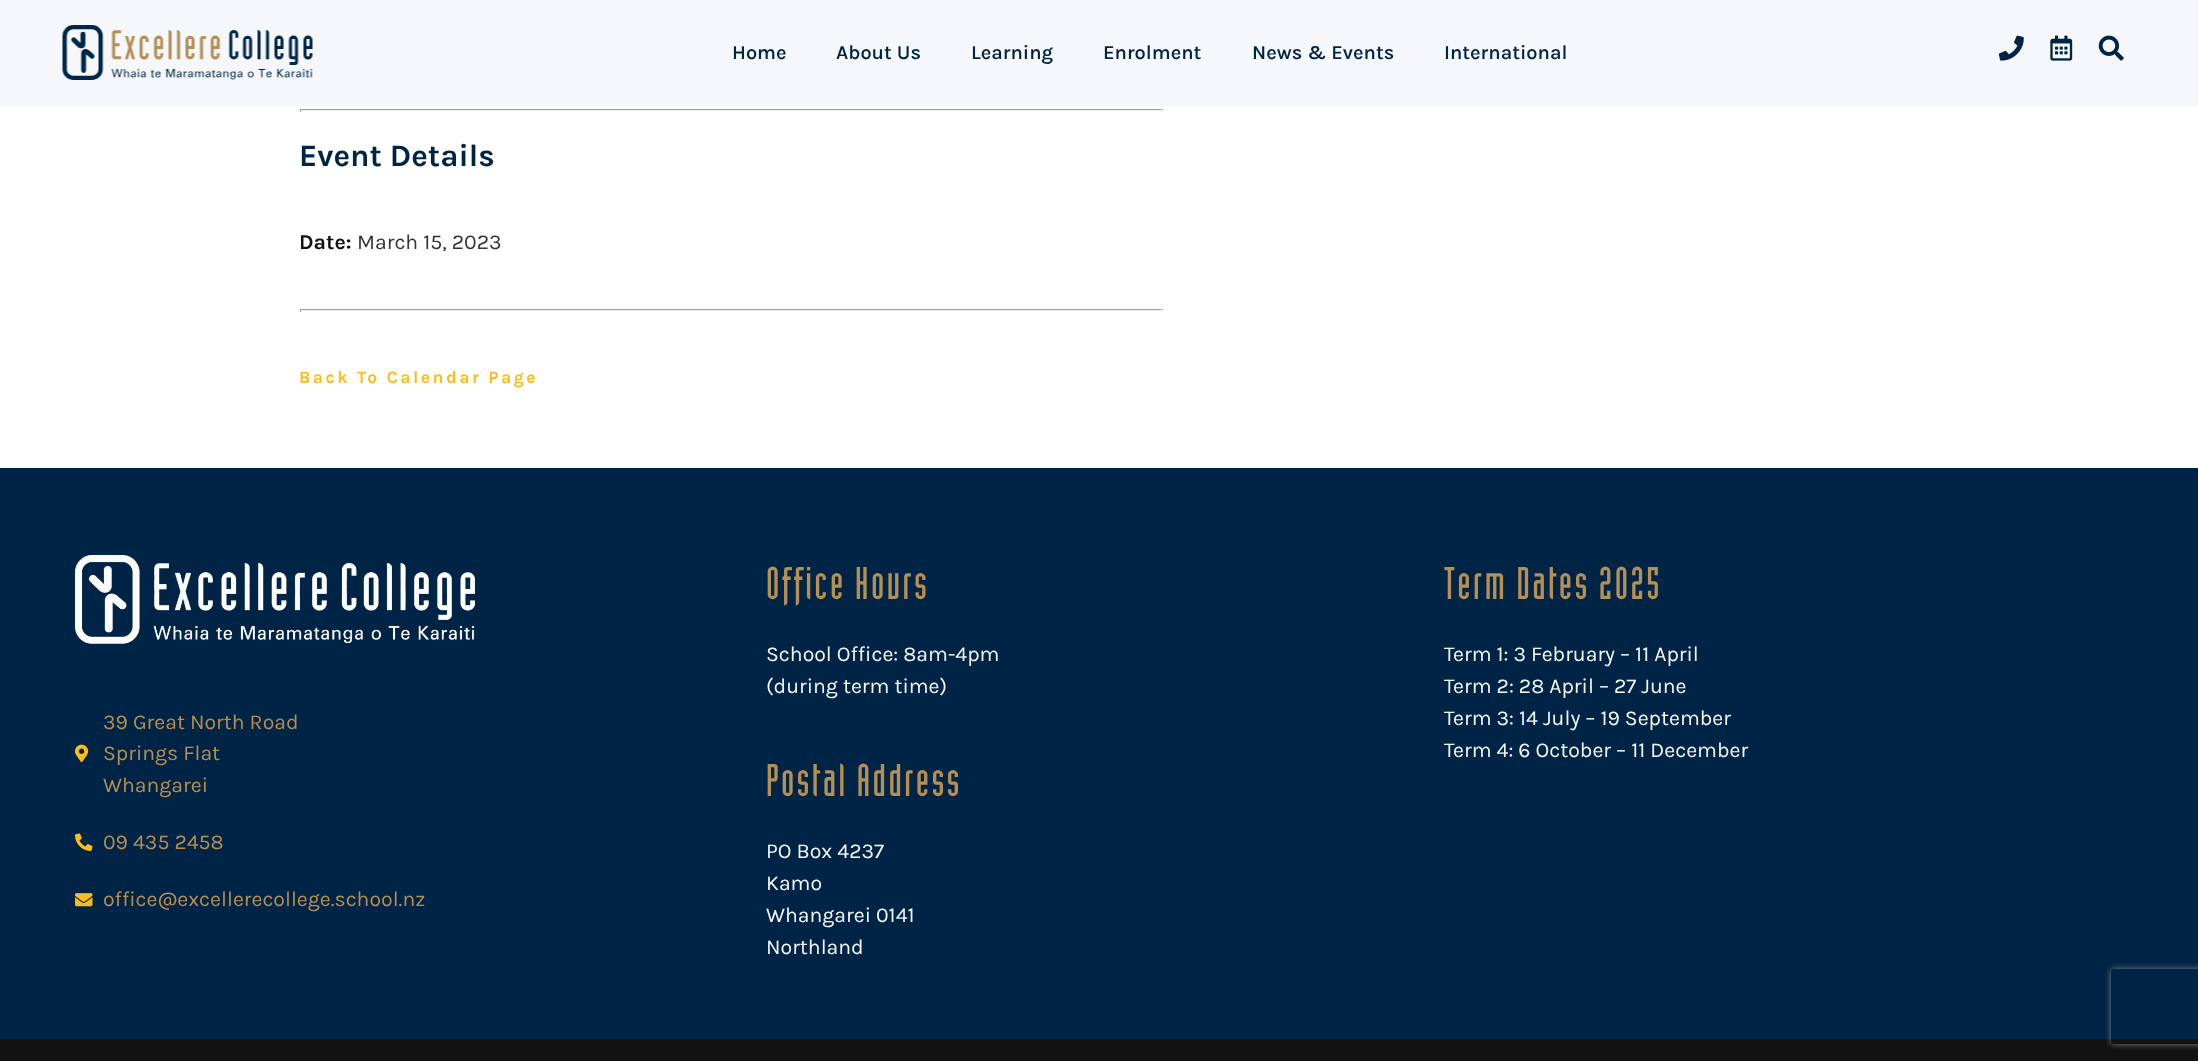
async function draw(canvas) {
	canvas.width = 2198;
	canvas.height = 1061;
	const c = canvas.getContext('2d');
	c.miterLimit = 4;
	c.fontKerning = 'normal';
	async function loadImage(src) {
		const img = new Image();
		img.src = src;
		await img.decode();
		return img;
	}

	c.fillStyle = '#fff';
	c.fillRect(0, 0, 2198, 1061);
	c.fillStyle = '#f6f7fb';
	c.fillRect(0, 0, 2198, 106);
	c.drawImage(await loadImage('img1.png'), 62, 25, 251, 55);
	c.font = '600 20px Karla';
	c.fillStyle = '#002446';
	for (const [text, x, y] of [
		['Home', 732, 59],
		['About Us', 836, 59],
		['Learning', 971, 59],
		['Enrolment', 1103, 59],
		['News & Events', 1252, 59],
		['International', 1444, 59],
	]) {
		c.fillText(text, x, y);
	}
	c.drawImage(await loadImage('img2.png'), 1998, 35, 26, 26);
	c.drawImage(await loadImage('img3.png'), 2050, 35, 23, 26);
	c.drawImage(await loadImage('img4.png'), 2098, 35, 26, 26);
	for (const [x, y, w, h, color] of [
		[300, 109, 863, 1, '#9f9f9f'],
		[1161, 109, 1, 3, '#eee'],
		[300, 110, 863, 1, '#eee'],
		[300, 109, 1, 3, '#9f9f9f'],
	]) {
		c.fillStyle = color;
		c.fillRect(x, y, w, h);
	}
	c.font = 'bold 31.25px Karla';
	c.fillStyle = '#002446';
	c.fillText('Event Details', 299, 166);
	c.font = 'bold 21.25px Karla';
	c.fillStyle = '#121212';
	c.fillText('Date:', 299, 249);
	c.font = '21.25px Karla';
	c.fillStyle = '#333';
	c.fillText('March 15, 2023', 357, 249);
	for (const [x, y, w, h, color] of [
		[300, 309, 863, 1, '#9f9f9f'],
		[1161, 309, 1, 3, '#eee'],
		[300, 310, 863, 1, '#eee'],
		[300, 309, 1, 3, '#9f9f9f'],
	]) {
		c.fillStyle = color;
		c.fillRect(x, y, w, h);
	}
	c.letterSpacing = '2.5px';
	c.font = 'bold 17.5px Karla';
	c.fillStyle = '#fcbd1b';
	c.fillText('Back To Calendar Page', 299, 383);
	c.fillStyle = '#002446';
	c.fillRect(0, 468, 2198, 571);
	c.font = '45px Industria';
	c.fillStyle = '#b58f54';
	c.fillText('Office Hours', 766, 599);
	c.letterSpacing = '0px';
	c.font = '21.25px Karla';
	c.fillStyle = '#f6f7fb';
	c.fillText('School Office: 8am-4pm', 766, 661);
	c.fillText('(during term time)', 766, 693);
	c.letterSpacing = '2.5px';
	c.font = '45px Industria';
	c.fillStyle = '#b58f54';
	c.fillText('Postal Address', 766, 796);
	c.letterSpacing = '0px';
	c.font = '21.25px Karla';
	c.fillStyle = '#f6f7fb';
	for (const [text, x, y] of [
		['PO Box 4237', 766, 858],
		['Kamo', 766, 890],
		['Whangarei 0141', 766, 922],
		['Northland', 766, 954],
	]) {
		c.fillText(text, x, y);
	}
	c.letterSpacing = '2.5px';
	c.font = '45px Industria';
	c.fillStyle = '#b58f54';
	c.fillText('Term Dates 2025', 1444, 599);
	c.letterSpacing = '0px';
	c.font = '21.25px Karla';
	c.fillStyle = '#f6f7fb';
	for (const [text, x, y] of [
		['Term 1: 3 February – 11 April', 1444, 661],
		['Term 2: 28 April – 27 June', 1444, 693],
		['Term 3: 14 July – 19 September', 1444, 725],
		['Term 4: 6 October – 11 December', 1444, 757],
	]) {
		c.fillText(text, x, y);
	}
	c.drawImage(await loadImage('img5.png'), 75, 555, 400, 89);
	c.drawImage(await loadImage('img6.png'), 75, 744, 14, 19);
	c.fillStyle = '#b58f54';
	for (const [text, x, y] of [
		['39 Great North Road', 103, 729],
		['Springs Flat', 103, 760],
		['Whangarei', 103, 792],
	]) {
		c.fillText(text, x, y);
	}
	c.drawImage(await loadImage('img7.png'), 75, 833, 18, 18);
	c.fillText('09 435 2458', 103, 849);
	c.drawImage(await loadImage('img8.png'), 75, 893, 18, 14);
	c.fillText('office@excellerecollege.school.nz', 103, 906);
	c.fillStyle = '#121212';
	c.fillRect(0, 1039, 2198, 22);
	c.save();
	c.beginPath();
	c.moveTo(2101, 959);
	c.lineTo(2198, 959);
	c.lineTo(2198, 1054);
	c.lineTo(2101, 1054);
	c.closePath();
	c.moveTo(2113.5, 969);
	c.lineTo(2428.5, 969);
	c.bezierCurveTo(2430, 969, 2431, 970, 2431, 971.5);
	c.lineTo(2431, 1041.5);
	c.bezierCurveTo(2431, 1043, 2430, 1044, 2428.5, 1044);
	c.lineTo(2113.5, 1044);
	c.bezierCurveTo(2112, 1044, 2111, 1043, 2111, 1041.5);
	c.lineTo(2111, 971.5);
	c.bezierCurveTo(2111, 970, 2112, 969, 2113.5, 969);
	c.closePath();
	c.clip('evenodd');
	c.fillStyle = '#808080';
	c.filter = 'blur(3px)';
	c.beginPath();
	c.roundRect(2111, 969, 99, 75, 2.5);
	c.fill();
	c.filter = 'none';
	c.restore();
}

draw(document.querySelector('canvas'));
